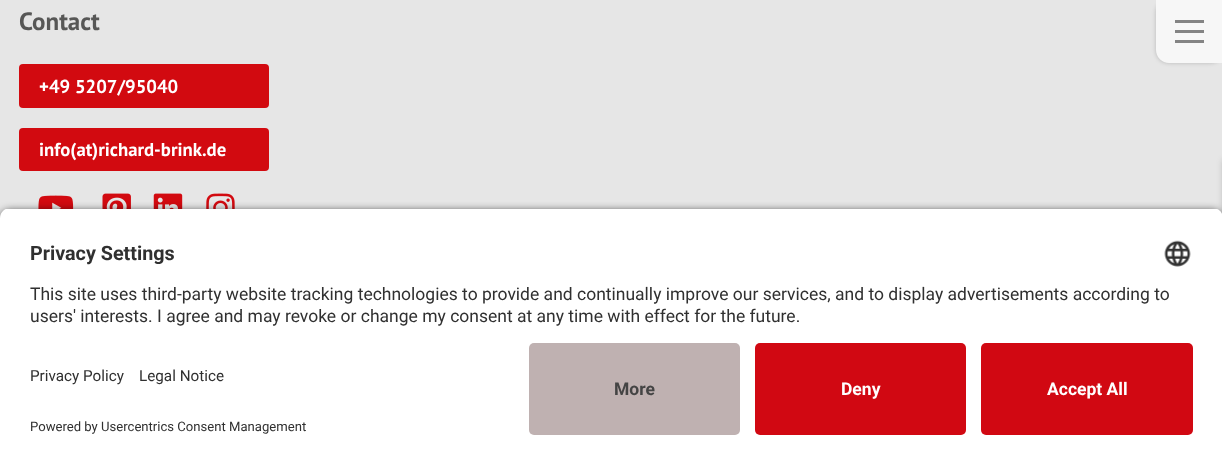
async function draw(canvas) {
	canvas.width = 1222;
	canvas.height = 465;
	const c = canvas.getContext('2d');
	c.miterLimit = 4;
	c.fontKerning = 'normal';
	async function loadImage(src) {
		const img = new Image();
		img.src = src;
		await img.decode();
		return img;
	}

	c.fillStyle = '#e6e6e6';
	c.fillRect(0, 0, 1222, 465);
	c.font = 'bold 25px PT Sans';
	c.fillStyle = '#575756';
	c.fillText('Contact', 19, 30);
	c.fillStyle = '#d20a10';
	c.beginPath();
	c.roundRect(19, 64, 250, 44, 4);
	c.fill();
	c.font = 'bold 18.75px PT Sans';
	c.fillStyle = '#fff';
	c.fillText('+49 5207/95040', 39, 93);
	c.fillStyle = '#d20a10';
	c.beginPath();
	c.roundRect(19, 128, 250, 43, 4);
	c.fill();
	c.fillStyle = '#fff';
	c.fillText('info(at)richard-brink.de', 39, 156);
	c.drawImage(await loadImage('img1.png'), 38, 195, 36, 14);
	c.drawImage(await loadImage('img2.png'), 102, 193, 29, 16);
	c.drawImage(await loadImage('img3.png'), 153, 193, 30, 16);
	c.drawImage(await loadImage('img4.png'), 206, 193, 29, 16);
	c.fillStyle = '#00000033';
	c.filter = 'blur(2px)';
	c.beginPath();
	c.roundRect(1156, 0, 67, 63, 13);
	c.fill();
	c.filter = 'none';
	c.fillStyle = '#f7f7f7';
	c.beginPath();
	c.moveTo(1156, 0);
	c.lineTo(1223, 0);
	c.lineTo(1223, 63);
	c.lineTo(1169, 63);
	c.bezierCurveTo(1162, 63, 1156, 57, 1156, 50);
	c.closePath();
	c.fill();
	for (const [x, y, w, h, color] of [
		[1175, 20, 29, 3, '#848484'],
		[1175, 30, 29, 3, '#848484'],
		[1175, 40, 29, 3, '#848484'],
	]) {
		c.fillStyle = color;
		c.fillRect(x, y, w, h);
	}
	c.fillStyle = '#00000033';
	c.filter = 'blur(3px)';
	c.beginPath();
	c.rect(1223, 160, 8, 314);
	c.fill();
	c.filter = 'none';
	c.fillStyle = '#000000cc';
	c.filter = 'blur(4.5px)';
	c.beginPath();
	c.roundRect(0, 211, 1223, 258, 10);
	c.fill();
	c.filter = 'none';
	c.save();
	c.beginPath();
	c.moveTo(10, 208);
	c.lineTo(1213, 208);
	c.bezierCurveTo(1218.5, 208, 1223, 212.5, 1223, 218);
	c.lineTo(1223, 333);
	c.lineTo(0, 333);
	c.lineTo(0, 218);
	c.bezierCurveTo(0, 212.5, 4.5, 208, 10, 208);
	c.closePath();
	c.clip();
	c.fillStyle = '#fff';
	c.fillRect(0, 209, 1222, 124);
	c.restore();
	c.font = 'bold 19.75px Roboto';
	c.fillStyle = '#303030';
	c.fillText('Privacy Settings', 30, 260);
	c.drawImage(await loadImage('img5.png'), 1164, 240, 27, 27);
	c.font = '17.5px Roboto';
	c.fillText('This site uses third-party website tracking technologies to provide and continually improve our services, and to display advertisements according to', 30, 300);
	c.fillText('users\' interests. I agree and may revoke or change my consent at any time with effect for the future.', 30, 322);
	c.fillStyle = '#fff';
	c.fillRect(0, 333, 1222, 132);
	c.font = '15.25px Roboto';
	c.fillStyle = '#303030';
	c.fillText('Privacy Policy', 30, 381);
	c.fillText('Legal Notice', 139, 381);
	c.font = '13.1px Roboto';
	c.fillText('Powered by Usercentrics Consent Management', 30, 431);
	c.fillStyle = '#bfb1b1';
	c.beginPath();
	c.roundRect(529, 343, 211, 92, 5);
	c.fill();
	c.font = 'bold 17.5px Roboto';
	c.fillStyle = '#444';
	c.fillText('More', 614, 395);
	c.fillStyle = '#d10812';
	c.beginPath();
	c.roundRect(755, 343, 211, 92, 5);
	c.fill();
	c.fillStyle = '#fff';
	c.fillText('Deny', 841, 395);
	c.fillStyle = '#d10812';
	c.beginPath();
	c.roundRect(981, 343, 212, 92, 5);
	c.fill();
	c.fillStyle = '#fff';
	c.fillText('Accept All', 1047, 395);
}

draw(document.querySelector('canvas'));
